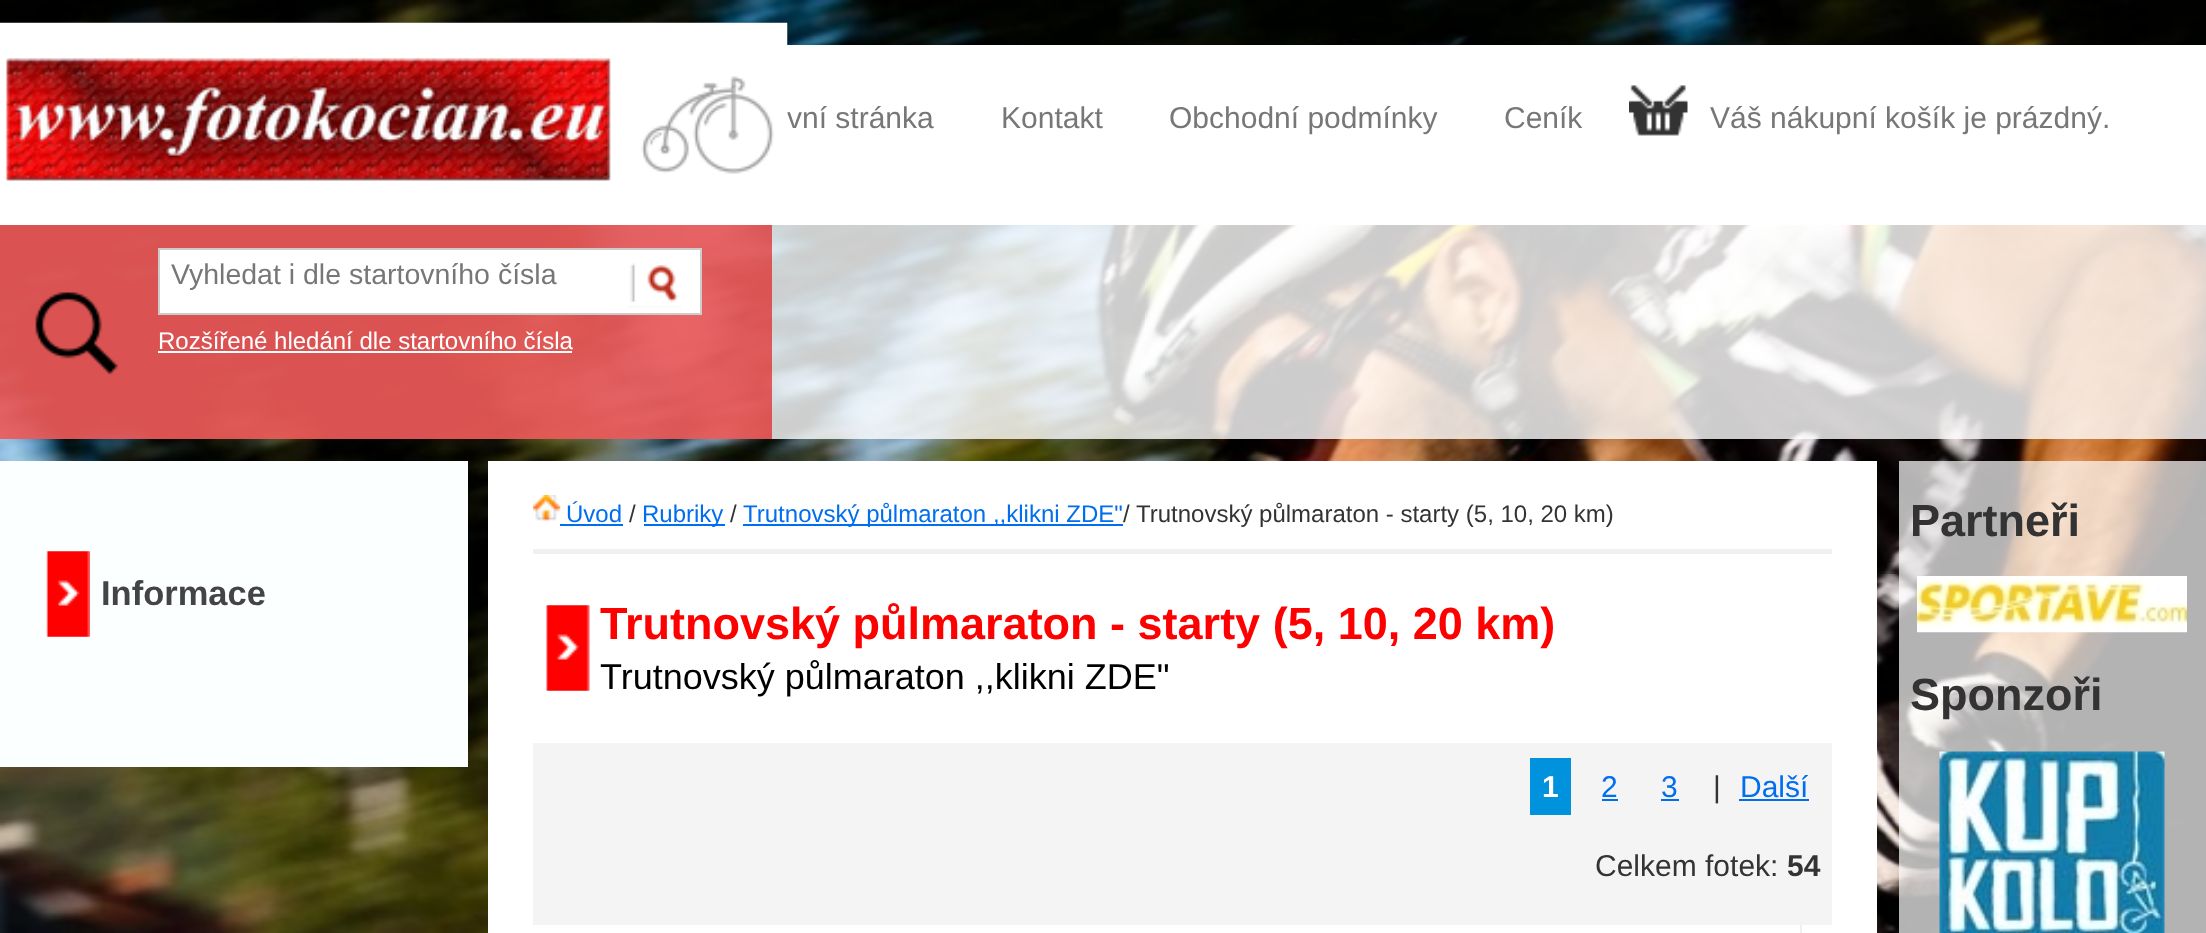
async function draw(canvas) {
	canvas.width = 2206;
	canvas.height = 933;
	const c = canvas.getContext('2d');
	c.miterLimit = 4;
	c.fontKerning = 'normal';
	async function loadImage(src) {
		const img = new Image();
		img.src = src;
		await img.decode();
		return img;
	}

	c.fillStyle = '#fff';
	c.fillRect(0, 0, 2206, 933);
	c.drawImage(await loadImage('img1.png'), 0, 0, 2206, 933);
	c.fillRect(0, 45, 2206, 180);
	c.font = '30px Liberation Sans';
	c.fillStyle = '#777';
	c.fillText('vní stránka', 787, 128);
	c.drawImage(await loadImage('img2.png'), 0, 22, 788, 159);
	for (const [text, x, y] of [
		['Kontakt', 1001, 128],
		['Obchodní podmínky', 1169, 128],
		['Ceník', 1504, 128],
	]) {
		c.fillText(text, x, y);
	}
	c.drawImage(await loadImage('img3.png'), 1629, 85, 59, 51);
	c.fillText('Váš nákupní košík je prázdný.', 1710, 128);
	c.fillStyle = '#ffffffcc';
	c.fillRect(0, 225, 2206, 214);
	c.fillStyle = '#e3020099';
	c.fillRect(0, 225, 772, 214);
	c.drawImage(await loadImage('img4.png'), 35, 292, 83, 83);
	c.fillStyle = '#fff';
	c.beginPath();
	c.rect(159, 249, 542, 65);
	c.fill();
	c.strokeStyle = '#ccc';
	c.lineWidth = 2;
	c.stroke();
	c.font = '28.5px Liberation Sans';
	c.fillStyle = '#777';
	c.fillText('Vyhledat i dle startovního čísla', 171, 284);
	c.drawImage(await loadImage('img5.png'), 628, 263, 54, 45);
	c.font = '24px Liberation Sans';
	c.fillStyle = '#fff';
	c.fillText('Rozšířené hledání dle startovního čísla', 158, 349);
	c.fillRect(158, 351, 414, 2);
	c.fillStyle = '#fcffff';
	c.fillRect(0, 461, 468, 306);
	c.drawImage(await loadImage('img6.png'), 46, 551, 44, 86);
	c.font = 'bold 34.5px Liberation Sans';
	c.fillStyle = '#444';
	c.fillText('Informace', 101, 605);
	c.fillStyle = '#fff';
	c.fillRect(488, 461, 1389, 472);
	c.fillStyle = '#f0f0f0';
	c.fillRect(533, 549, 1299, 5);
	c.drawImage(await loadImage('img7.png'), 533, 495, 28, 26);
	c.font = '24px Liberation Sans';
	c.fillStyle = '#006eee';
	c.fillText('Úvod', 566, 522);
	c.fillRect(560, 524, 63, 2);
	c.fillStyle = '#333';
	c.fillText('/', 629, 522);
	c.fillStyle = '#006eee';
	c.fillRect(644, 524, 81, 2);
	c.fillText('Rubriky', 642, 522);
	c.fillStyle = '#333';
	c.fillText('/', 730, 522);
	c.fillStyle = '#006eee';
	c.fillRect(743, 524, 380, 2);
	c.fillText('Trutnovský půlmaraton ,,klikni ZDE"', 743, 522);
	c.fillStyle = '#333';
	c.fillText('/ Trutnovský půlmaraton - starty (5, 10, 20 km)', 1123, 522);
	c.drawImage(await loadImage('img8.png'), 546, 605, 44, 86);
	c.font = 'bold 45px Liberation Sans';
	c.fillStyle = '#f00';
	c.fillText('Trutnovský půlmaraton - starty (5, 10, 20 km)', 600, 639);
	c.font = '36px Liberation Sans';
	c.fillStyle = '#000';
	c.fillText('Trutnovský půlmaraton ,,klikni ZDE"', 600, 689);
	c.fillStyle = '#f4f4f4';
	c.fillRect(533, 743, 1299, 182);
	c.fillStyle = '#0092dc';
	c.fillRect(1530, 758, 41, 57);
	c.font = 'bold 30px Liberation Sans';
	c.fillStyle = '#fff';
	c.fillText('1', 1542, 797);
	c.font = '30px Liberation Sans';
	c.fillStyle = '#006eee';
	c.fillText('2', 1601, 797);
	c.fillRect(1602, 799, 16, 2);
	c.fillText('3', 1661, 797);
	c.fillRect(1661, 799, 18, 2);
	c.fillStyle = '#333';
	c.fillText('|', 1713, 797);
	c.fillStyle = '#006eee';
	c.fillText('Další', 1740, 797);
	c.fillRect(1739, 799, 70, 2);
	c.fillStyle = '#333';
	c.fillText('Celkem fotek:', 1595, 876);
	c.font = 'bold 30px Liberation Sans';
	c.fillText('54', 1787, 876);
	c.fillStyle = '#f0f0f0';
	c.fillRect(1800, 925, 2, 8);
	c.fillStyle = '#ffffffb3';
	c.fillRect(1899, 461, 307, 472);
	c.font = 'bold 45px Liberation Sans';
	c.fillStyle = '#333';
	c.fillText('Partneři', 1910, 536);
	c.drawImage(await loadImage('img9.png'), 1917, 576, 270, 57);
	c.fillText('Sponzoři', 1910, 710);
	c.drawImage(await loadImage('img10.png'), 1939, 751, 226, 182);
}

draw(document.querySelector('canvas'));
